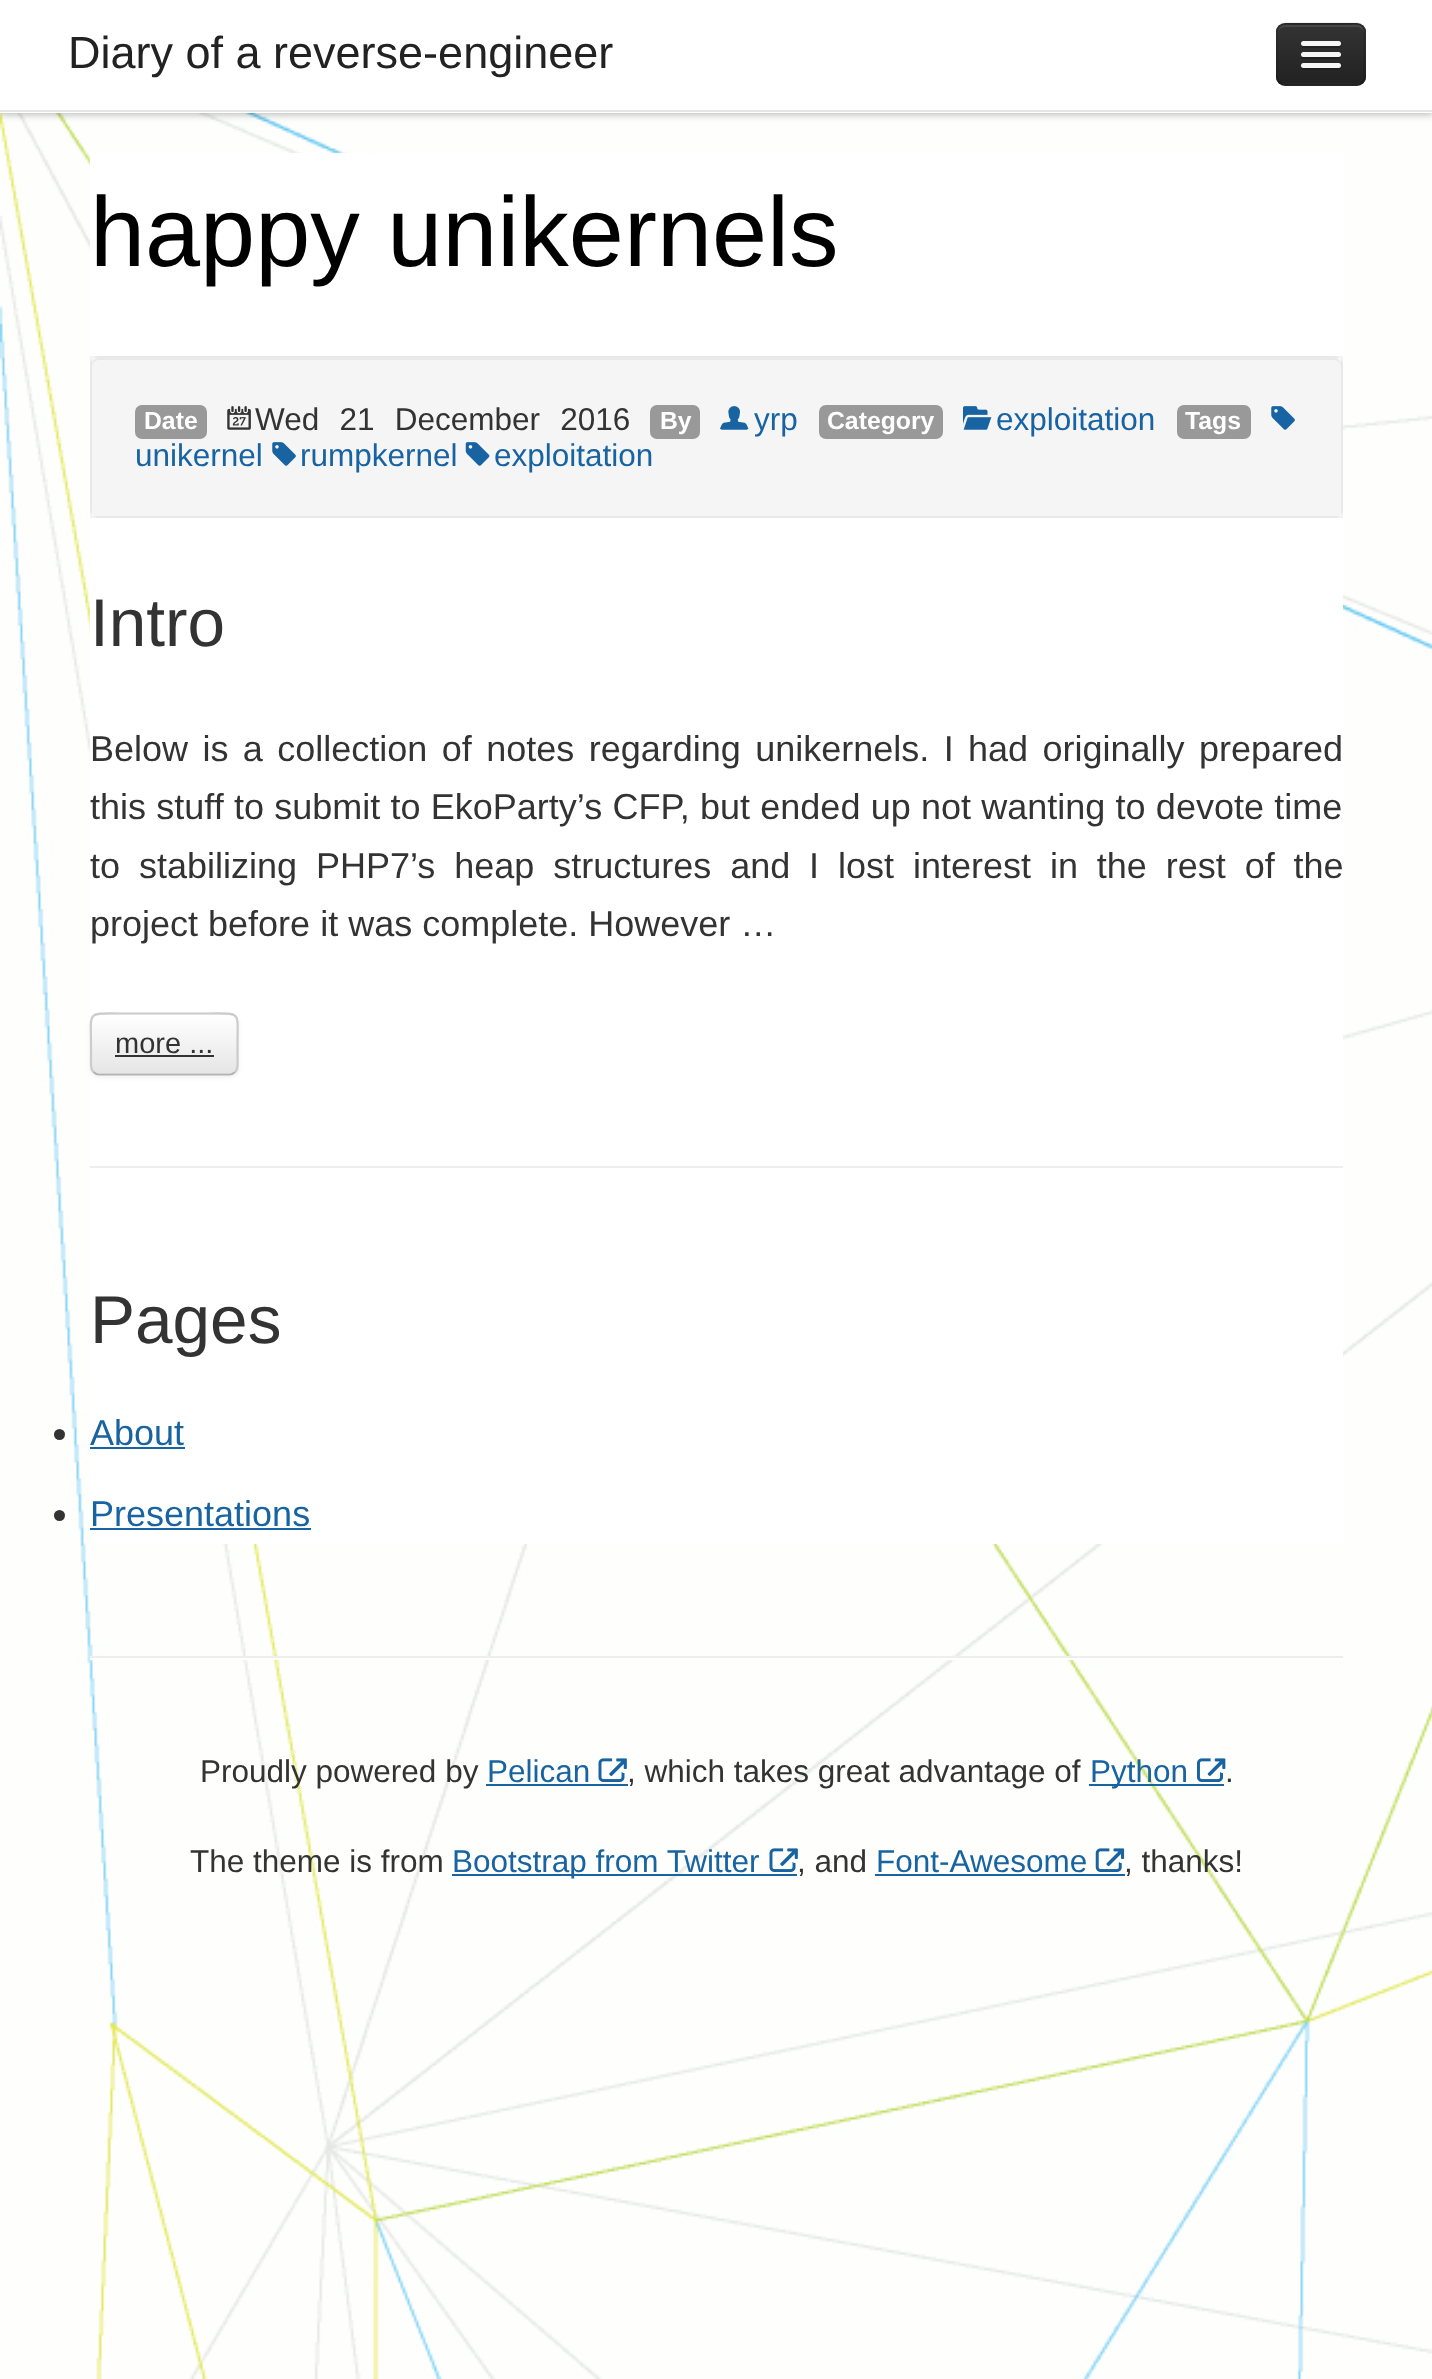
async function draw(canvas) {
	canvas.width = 1432;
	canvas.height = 2379;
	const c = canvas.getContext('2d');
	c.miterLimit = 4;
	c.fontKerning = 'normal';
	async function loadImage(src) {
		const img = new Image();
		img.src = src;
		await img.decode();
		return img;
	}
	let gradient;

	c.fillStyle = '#fff';
	c.fillRect(0, 0, 1432, 2379);
	c.drawImage(await loadImage('img1.png'), 0, 113, 1432, 2266);
	c.fillStyle = '#00000040';
	c.filter = 'blur(3.5px)';
	c.beginPath();
	c.rect(0, 2, 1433, 113);
	c.fill();
	c.filter = 'none';
	c.fillStyle = '#fff';
	c.fillRect(0, 0, 1432, 113);
	c.fillStyle = '#e6e6e6';
	c.fillRect(0, 110, 1432, 2);
	c.font = '45px Liberation Sans';
	c.fillStyle = '#222';
	c.fillText('Diary of a reverse-engineer', 68, 68);
	c.fillStyle = '#2c2c2c';
	c.beginPath();
	c.roundRect(1276, 23, 90, 63, 9);
	c.fill();
	c.save();
	c.beginPath();
	c.roundRect(1276, 23, 90, 63, 9);
	c.clip();
	gradient = c.createLinearGradient(1321, 25, 1321, 83);
	gradient.addColorStop(0, '#333');
	gradient.addColorStop(1, '#222');
	c.fillStyle = gradient;
	c.fillRect(1276, 25, 90, 58);
	c.restore();
	c.fillStyle = '#474747';
	c.beginPath();
	c.moveTo(1285, 27);
	c.lineTo(1357, 27);
	c.bezierCurveTo(1360, 27, 1364, 30, 1364, 34);
	c.bezierCurveTo(1364, 22, 1354, 25, 1345, 25);
	c.lineTo(1297, 25);
	c.bezierCurveTo(1288, 25, 1278, 22, 1278, 34);
	c.bezierCurveTo(1278, 30, 1281, 27, 1285, 27);
	c.closePath();
	c.fill();
	c.beginPath();
	c.moveTo(1362.5, 82);
	c.bezierCurveTo(1361, 83.5, 1359, 84.5, 1357, 84.5);
	c.lineTo(1285, 84.5);
	c.bezierCurveTo(1282.5, 84.5, 1280.5, 83.5, 1279, 82);
	c.strokeStyle = '#00000040';
	c.lineWidth = 2.2;
	c.stroke();
	c.beginPath();
	c.moveTo(1279, 82);
	c.bezierCurveTo(1277.5, 80.5, 1277, 78.5, 1277, 76.5);
	c.lineTo(1277, 31.5);
	c.bezierCurveTo(1277, 29.5, 1277.5, 27.5, 1279, 26);
	c.bezierCurveTo(1280.5, 24.5, 1282.5, 23.5, 1285, 23.5);
	c.lineTo(1357, 23.5);
	c.bezierCurveTo(1359, 23.5, 1361, 24.5, 1362.5, 26);
	c.bezierCurveTo(1364, 27.5, 1364.5, 29.5, 1364.5, 31.5);
	c.lineTo(1364.5, 76.5);
	c.bezierCurveTo(1364.5, 78.5, 1364, 80.5, 1362.5, 82);
	c.strokeStyle = '#0000001a';
	c.stroke();
	c.fillStyle = '#222';
	c.beginPath();
	c.moveTo(1301, 44);
	c.bezierCurveTo(1299, 49, 1308, 48, 1309, 48);
	c.lineTo(1333, 48);
	c.bezierCurveTo(1333, 48, 1344, 49, 1341, 44);
	c.lineTo(1339, 45);
	c.bezierCurveTo(1335, 45, 1303, 46, 1301, 44);
	c.closePath();
	c.fill();
	c.fillStyle = '#f5f5f5';
	c.beginPath();
	c.roundRect(1301, 41, 40, 5, 2.5);
	c.fill();
	c.fillStyle = '#1f1f1f';
	c.beginPath();
	c.moveTo(1301, 56);
	c.bezierCurveTo(1299, 60, 1308, 59, 1309, 59);
	c.lineTo(1333, 59);
	c.bezierCurveTo(1333, 59, 1343, 60, 1341, 55);
	c.lineTo(1339, 56);
	c.bezierCurveTo(1335, 57, 1302, 57, 1301, 56);
	c.closePath();
	c.fill();
	c.fillStyle = '#f5f5f5';
	c.beginPath();
	c.roundRect(1301, 52, 40, 5, 2.5);
	c.fill();
	c.fillStyle = '#1d1d1d';
	c.beginPath();
	c.moveTo(1301, 67);
	c.bezierCurveTo(1300, 71, 1308, 70, 1309, 70);
	c.lineTo(1333, 70);
	c.bezierCurveTo(1334, 70, 1343, 71, 1341, 66);
	c.lineTo(1339, 67);
	c.bezierCurveTo(1335, 68, 1302, 68, 1301, 67);
	c.closePath();
	c.fill();
	c.fillStyle = '#f5f5f5';
	c.beginPath();
	c.roundRect(1301, 63, 40, 5, 2.5);
	c.fill();
	c.fillStyle = '#fff';
	c.fillRect(90, 153, 1253, 1391);
	c.font = '99px Liberation Sans';
	c.fillStyle = '#000';
	c.fillText('happy unikernels', 90, 266);
	c.fillStyle = '#f5f5f5';
	c.beginPath();
	c.roundRect(90, 356, 1253, 162, 9);
	c.fill();
	c.fillStyle = '#e9e9e9';
	c.beginPath();
	c.moveTo(99, 360);
	c.lineTo(1334, 360);
	c.bezierCurveTo(1338, 360, 1341, 363, 1341, 367);
	c.lineTo(1341, 365);
	c.bezierCurveTo(1341, 361, 1338, 358, 1334, 358);
	c.lineTo(99, 358);
	c.bezierCurveTo(95, 358, 92, 361, 92, 365);
	c.lineTo(92, 367);
	c.bezierCurveTo(92, 363, 95, 360, 99, 360);
	c.closePath();
	c.fill();
	c.strokeStyle = '#0000000d';
	c.lineWidth = 2;
	c.strokeRect(91, 357, 1251, 160);
	c.fillStyle = '#999';
	c.beginPath();
	c.roundRect(135, 405, 72, 34, 7);
	c.fill();
	c.font = 'bold 24.75px Liberation Sans';
	c.fillStyle = '#fff';
	c.fillText('Date', 144, 429);
	c.drawImage(await loadImage('img2.png'), 227, 406, 24, 24);
	c.wordSpacing = '11.5px';
	c.font = '31.5px Liberation Sans';
	c.fillStyle = '#333';
	c.fillText('Wed 21 December 2016', 255, 430);
	c.fillStyle = '#999';
	c.beginPath();
	c.roundRect(650, 405, 50, 34, 7);
	c.fill();
	c.wordSpacing = '0px';
	c.font = 'bold 24.75px Liberation Sans';
	c.fillStyle = '#fff';
	c.fillText('By', 660, 429);
	c.drawImage(await loadImage('img3.png'), 720, 406, 29, 24);
	c.font = '31.5px Liberation Sans';
	c.fillStyle = '#1863a1';
	c.fillText('yrp', 754, 430);
	c.fillStyle = '#999';
	c.beginPath();
	c.roundRect(819, 405, 124, 34, 7);
	c.fill();
	c.font = 'bold 24.75px Liberation Sans';
	c.fillStyle = '#fff';
	c.fillText('Category', 827, 429);
	c.drawImage(await loadImage('img4.png'), 963, 406, 29, 24);
	c.font = '31.5px Liberation Sans';
	c.fillStyle = '#1863a1';
	c.fillText('exploitation', 996, 430);
	c.fillStyle = '#999';
	c.beginPath();
	c.roundRect(1177, 405, 74, 34, 7);
	c.fill();
	c.font = 'bold 24.75px Liberation Sans';
	c.fillStyle = '#fff';
	c.fillText('Tags', 1185, 429);
	c.drawImage(await loadImage('img5.png'), 1271, 406, 24, 24);
	c.font = '31.5px Liberation Sans';
	c.fillStyle = '#1863a1';
	c.fillText('unikernel', 135, 466);
	c.drawImage(await loadImage('img5.png'), 272, 442, 24, 24);
	c.fillText('rumpkernel', 300, 466);
	c.drawImage(await loadImage('img6.png'), 465, 442, 25, 24);
	c.fillText('exploitation', 494, 466);
	c.font = '67.5px Liberation Sans';
	c.fillStyle = '#333';
	c.fillText('Intro', 90, 646);
	c.wordSpacing = '4.4px';
	c.font = '36px Liberation Sans';
	c.fillText('Below is a collection of notes regarding unikernels. I had originally prepared', 90, 761);
	c.wordSpacing = '0.25px';
	c.fillText('this stuff to submit to EkoParty’s CFP, but ended up not wanting to devote time', 90, 819);
	c.wordSpacing = '8.9px';
	c.fillText('to stabilizing PHP7’s heap structures and I lost interest in the rest of the', 90, 878);
	c.wordSpacing = '0px';
	c.fillText('project before it was complete. However …', 90, 936);
	c.fillStyle = '#0000000d';
	c.filter = 'blur(2px)';
	c.beginPath();
	c.roundRect(90, 1015, 149, 63, 9);
	c.fill();
	c.filter = 'none';
	c.fillStyle = '#f5f5f5';
	c.beginPath();
	c.roundRect(90, 1013, 149, 63, 9);
	c.fill();
	c.save();
	c.beginPath();
	c.roundRect(90, 1013, 149, 63, 9);
	c.clip();
	gradient = c.createLinearGradient(164, 1015, 164, 1073);
	gradient.addColorStop(0, '#fff');
	gradient.addColorStop(1, '#e6e6e6');
	c.fillStyle = gradient;
	c.fillRect(90, 1015, 149, 58);
	c.restore();
	c.beginPath();
	c.moveTo(235, 1072);
	c.bezierCurveTo(233.5, 1073.5, 231.5, 1074.5, 229.5, 1074.5);
	c.lineTo(99, 1074.5);
	c.bezierCurveTo(97, 1074.5, 95, 1073.5, 93.5, 1072);
	c.strokeStyle = '#b3b3b3';
	c.lineWidth = 2.2;
	c.stroke();
	c.beginPath();
	c.moveTo(93.5, 1072);
	c.bezierCurveTo(90, 1068.5, 91, 1063, 91, 1059);
	c.lineTo(91, 1044);
	c.bezierCurveTo(91, 1010.5, 86.5, 1013.5, 121, 1013.5);
	c.lineTo(208, 1013.5);
	c.bezierCurveTo(242, 1013.5, 237.5, 1010.5, 237.5, 1044);
	c.lineTo(237.5, 1059);
	c.bezierCurveTo(237.5, 1063, 238.5, 1068.5, 235, 1072);
	c.strokeStyle = '#ccc';
	c.stroke();
	c.font = '29px Liberation Sans';
	c.fillStyle = '#333';
	c.fillText('more ...', 115, 1053);
	c.fillRect(115, 1055, 99, 2);
	c.fillStyle = '#eee';
	c.fillRect(90, 1166, 1253, 2);
	c.font = '67.5px Liberation Sans';
	c.fillStyle = '#333';
	c.fillText('Pages', 90, 1343);
	c.beginPath();
	c.arc(59.5, 1434.5, 5.5, 0, 2 * Math.PI);
	c.fill();
	c.font = '36px Liberation Sans';
	c.fillStyle = '#1863a1';
	c.fillText('About', 90, 1445);
	c.fillRect(90, 1447, 95, 2);
	c.fillStyle = '#333';
	c.beginPath();
	c.arc(59.5, 1515.5, 5.5, 0, 2 * Math.PI);
	c.fill();
	c.fillStyle = '#1863a1';
	c.fillText('Presentations', 90, 1526);
	for (const [x, y, w, h, color] of [
		[90, 1528, 221, 2, '#1863a1'],
		[90, 1656, 1253, 2, '#eee'],
		[90, 1658, 1253, 2, '#fff'],
	]) {
		c.fillStyle = color;
		c.fillRect(x, y, w, h);
	}
	c.font = '31.5px Liberation Sans';
	c.fillStyle = '#333';
	c.fillText('Proudly powered by', 200, 1782);
	c.fillStyle = '#1863a1';
	c.fillText('Pelican', 487, 1782);
	c.fillRect(486, 1784, 142, 2);
	c.drawImage(await loadImage('img7.png'), 598, 1758, 29, 24);
	c.fillStyle = '#333';
	c.fillText(', which takes great advantage of', 627, 1782);
	c.fillStyle = '#1863a1';
	c.fillRect(1089, 1784, 135, 2);
	c.fillText('Python', 1090, 1782);
	c.drawImage(await loadImage('img8.png'), 1197, 1758, 29, 24);
	c.fillStyle = '#333';
	c.fillText('.', 1225, 1782);
	c.fillText('The theme is from', 190, 1872);
	c.fillStyle = '#1863a1';
	c.fillRect(452, 1874, 345, 2);
	c.fillText('Bootstrap from Twitter', 452, 1872);
	c.drawImage(await loadImage('img7.png'), 769, 1848, 29, 24);
	c.fillStyle = '#333';
	c.fillText(', and', 797, 1872);
	c.fillStyle = '#1863a1';
	c.fillText('Font-Awesome', 876, 1872);
	c.fillRect(875, 1874, 250, 2);
	c.drawImage(await loadImage('img9.png'), 1095, 1848, 30, 24);
	c.fillStyle = '#333';
	c.fillText(', thanks!', 1124, 1872);
}

draw(document.querySelector('canvas'));
